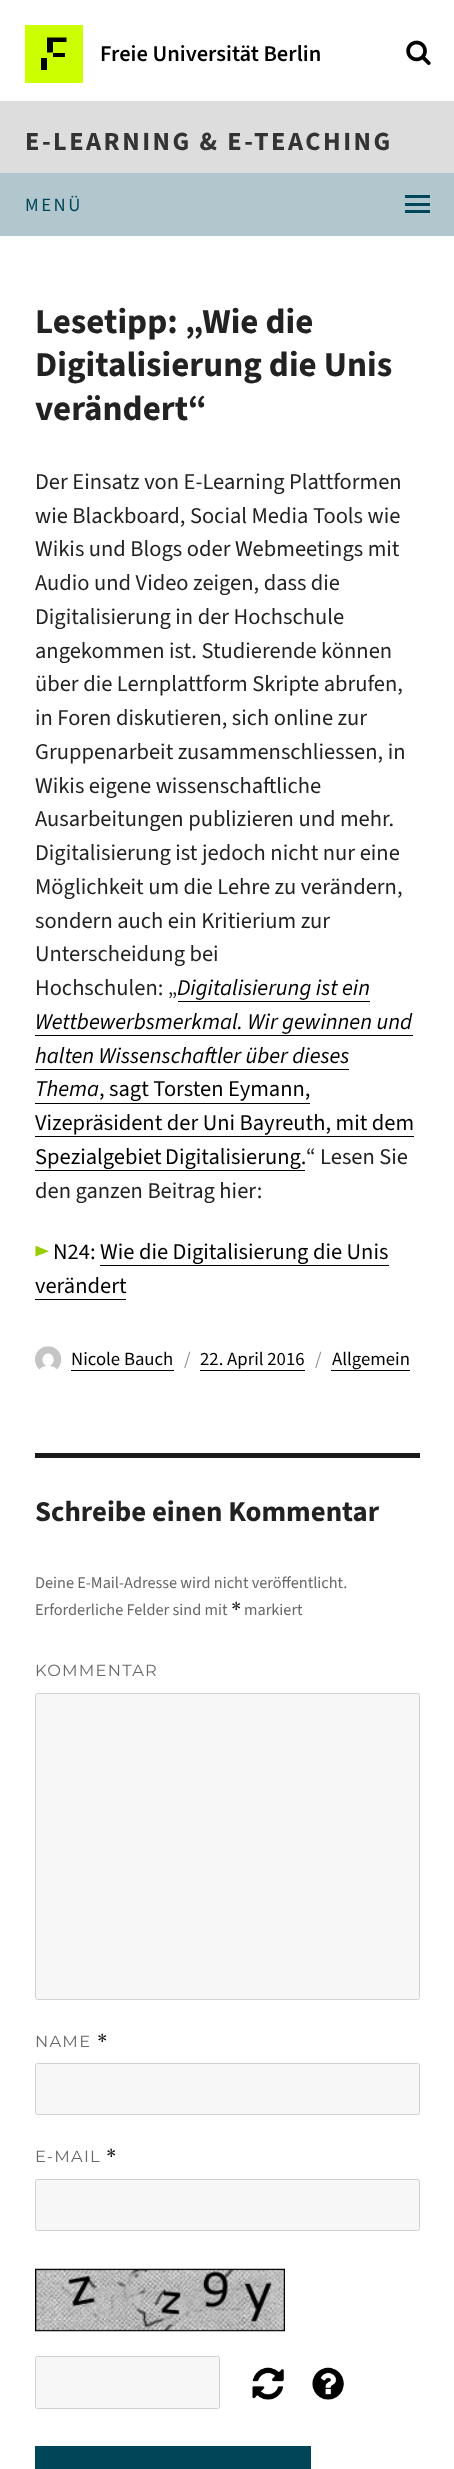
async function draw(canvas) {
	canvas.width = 454;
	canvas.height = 2469;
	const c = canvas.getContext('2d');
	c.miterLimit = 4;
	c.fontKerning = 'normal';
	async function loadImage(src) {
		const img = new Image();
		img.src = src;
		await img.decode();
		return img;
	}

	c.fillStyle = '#fff';
	c.fillRect(0, 0, 454, 2469);
	c.fillStyle = '#cf0';
	c.fillRect(25, 25, 58, 58);
	c.fillStyle = '#000';
	c.beginPath();
	c.moveTo(47, 37.5);
	c.lineTo(66.5, 37.5);
	c.lineTo(66.5, 42);
	c.lineTo(53, 42);
	c.lineTo(53, 52.5);
	c.lineTo(47, 52.5);
	c.closePath();
	c.fill();
	c.fillRect(53, 53, 12, 4);
	c.fillRect(41, 58, 6, 12);
	c.font = '600 22.5px "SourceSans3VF"';
	c.fillText('Freie Universität Berlin', 100, 61);
	c.drawImage(await loadImage('img1.png'), 406, 40, 25, 25);
	c.fillStyle = '#ddd';
	c.fillRect(0, 101, 454, 72);
	c.letterSpacing = '2.5px';
	c.font = 'bold 26.25px "SourceSans3VF"';
	c.fillStyle = '#333';
	c.fillText('E-LEARNING & E-TEACHING', 25, 150);
	c.fillStyle = '#b2c7cd';
	c.fillRect(0, 173, 454, 63);
	c.font = '18.75px "SourceSans3VF"';
	c.fillStyle = '#004659';
	c.fillText('MENÜ', 25, 211);
	for (const [x, y, w, h, color] of [
		[405, 195, 25, 3, '#004659'],
		[405, 203, 25, 3, '#004659'],
		[405, 210, 25, 3, '#004659'],
	]) {
		c.fillStyle = color;
		c.fillRect(x, y, w, h);
	}
	c.letterSpacing = '0px';
	c.font = 'bold 35px "SourceSans3VF"';
	c.fillStyle = '#222';
	for (const [text, x, y] of [
		['Lesetipp: „Wie die', 35, 333],
		['Digitalisierung die Unis', 35, 376],
		['verändert“', 35, 420],
	]) {
		c.fillText(text, x, y);
	}
	c.font = '22.5px "SourceSans3VF"';
	for (const [text, x, y] of [
		['Der Einsatz von E-Learning Plattformen', 35, 489],
		['wie Blackboard, Social Media Tools wie', 35, 523],
		['Wikis und Blogs oder Webmeetings mit', 35, 556],
		['Audio und Video zeigen, dass die', 35, 590],
		['Digitalisierung in der Hochschule', 35, 624],
		['angekommen ist. Studierende können', 35, 658],
		['über die Lernplattform Skripte abrufen,', 35, 691],
		['in Foren diskutieren, sich online zur', 35, 725],
		['Gruppenarbeit zusammenschliessen, in', 35, 759],
		['Wikis eigene wissenschaftliche', 35, 793],
		['Ausarbeitungen publizieren und mehr.', 35, 826],
		['Digitalisierung ist jedoch nicht nur eine', 35, 860],
		['Möglichkeit um die Lehre zu verändern,', 35, 894],
		['sondern auch ein Kritierium zur', 35, 928],
		['Unterscheidung bei', 35, 961],
		['Hochschulen: „', 35, 995],
	]) {
		c.fillText(text, x, y);
	}
	c.font = 'italic 22.5px "SourceSans3VF"';
	c.fillStyle = '#000';
	c.fillText('Digitalisierung ist ein', 177, 995);
	c.fillRect(178, 1001, 192, 1);
	c.fillText('Wettbewerbsmerkmal. Wir gewinnen und', 35, 1029);
	c.fillRect(35, 1035, 378, 1);
	c.fillText('halten Wissenschaftler über dieses', 35, 1063);
	c.fillRect(35, 1069, 314, 1);
	c.fillText('Thema', 35, 1096);
	c.font = '22.5px "SourceSans3VF"';
	c.fillText(', sagt Torsten Eymann,', 99, 1096);
	c.fillRect(35, 1103, 275, 1);
	c.fillText('Vizepräsident der Uni Bayreuth, mit dem', 35, 1130);
	c.fillRect(35, 1136, 379, 1);
	c.wordSpacing = '-1px';
	c.fillText('Spezialgebiet Digitalisierung.', 35, 1164);
	c.fillRect(35, 1170, 270, 1);
	c.wordSpacing = '0px';
	c.fillStyle = '#222';
	c.fillText('“ Lesen Sie', 306, 1164);
	c.fillText('den ganzen Beitrag hier:', 35, 1198);
	c.fillStyle = '#9c0';
	c.fillText('►', 35, 1259);
	c.fillStyle = '#000';
	c.fillText('N24: Wie die Digitalisierung die Unis', 53, 1259);
	c.fillText('verändert', 35, 1293);
	c.fillRect(100, 1265, 289, 1);
	c.fillRect(35, 1299, 91, 1);
	c.drawImage(await loadImage('img2.png'), 35, 1346, 26, 24);
	c.font = '18.75px "SourceSans3VF"';
	c.fillText('Nicole Bauch', 71, 1365);
	c.fillRect(71, 1370, 103, 1);
	c.fillStyle = '#959595';
	c.fillText('/', 184, 1365);
	c.fillStyle = '#000';
	c.fillText('22. April 2016', 200, 1365);
	c.fillRect(200, 1370, 105, 1);
	c.fillStyle = '#959595';
	c.fillText('/', 315, 1365);
	c.fillStyle = '#000';
	c.fillText('Allgemein', 332, 1365);
	c.fillRect(331, 1370, 79, 1);
	c.fillStyle = '#1a1a1a';
	c.fillRect(35, 1453, 385, 5);
	c.font = 'bold 28.75px "SourceSans3VF"';
	c.fillStyle = '#222';
	c.fillText('Schreibe einen Kommentar', 35, 1521);
	c.font = '16.25px "SourceSans3VF"';
	c.fillStyle = '#686868';
	c.fillText('Deine E-Mail-Adresse wird nicht veröffentlicht.', 35, 1588);
	c.fillText('Erforderliche Felder sind mit', 35, 1615);
	c.font = '16.25px Merriweather';
	c.fillStyle = '#000';
	c.fillText('*', 231, 1615);
	c.font = '16.25px "SourceSans3VF"';
	c.fillStyle = '#686868';
	c.fillText('markiert', 244, 1615);
	c.letterSpacing = '1.25px';
	c.font = '16.25px Montserrat';
	c.fillText('KOMMENTAR', 35, 1676);
	c.fillStyle = '#f7f7f7';
	c.beginPath();
	c.roundRect(35.5, 1693.5, 384, 306, 2);
	c.fill();
	c.strokeStyle = '#d1d1d1';
	c.stroke();
	c.fillStyle = '#686868';
	c.fillText('NAME', 35, 2047);
	c.font = '16.25px Merriweather';
	c.fillStyle = '#000';
	c.fillText('*', 97, 2047);
	c.fillStyle = '#f7f7f7';
	c.beginPath();
	c.roundRect(35.5, 2063.5, 384, 51, 2);
	c.fill();
	c.stroke();
	c.font = '16.25px Montserrat';
	c.fillStyle = '#686868';
	c.fillText('E-MAIL', 35, 2162);
	c.font = '16.25px Merriweather';
	c.fillStyle = '#000';
	c.fillText('*', 106, 2162);
	c.fillStyle = '#f7f7f7';
	c.beginPath();
	c.roundRect(35.5, 2179.5, 384, 51, 2);
	c.fill();
	c.stroke();
	c.drawImage(await loadImage('img3.png'), 35, 2268, 250, 64);
	c.beginPath();
	c.roundRect(35.5, 2356.5, 184, 52, 2);
	c.fill();
	c.stroke();
	c.drawImage(await loadImage('img4.png'), 252, 2367, 32, 33);
	c.drawImage(await loadImage('img5.png'), 312, 2367, 32, 33);
	c.fillStyle = '#004659';
	c.fillRect(35, 2446, 276, 23);
}

draw(document.querySelector('canvas'));
